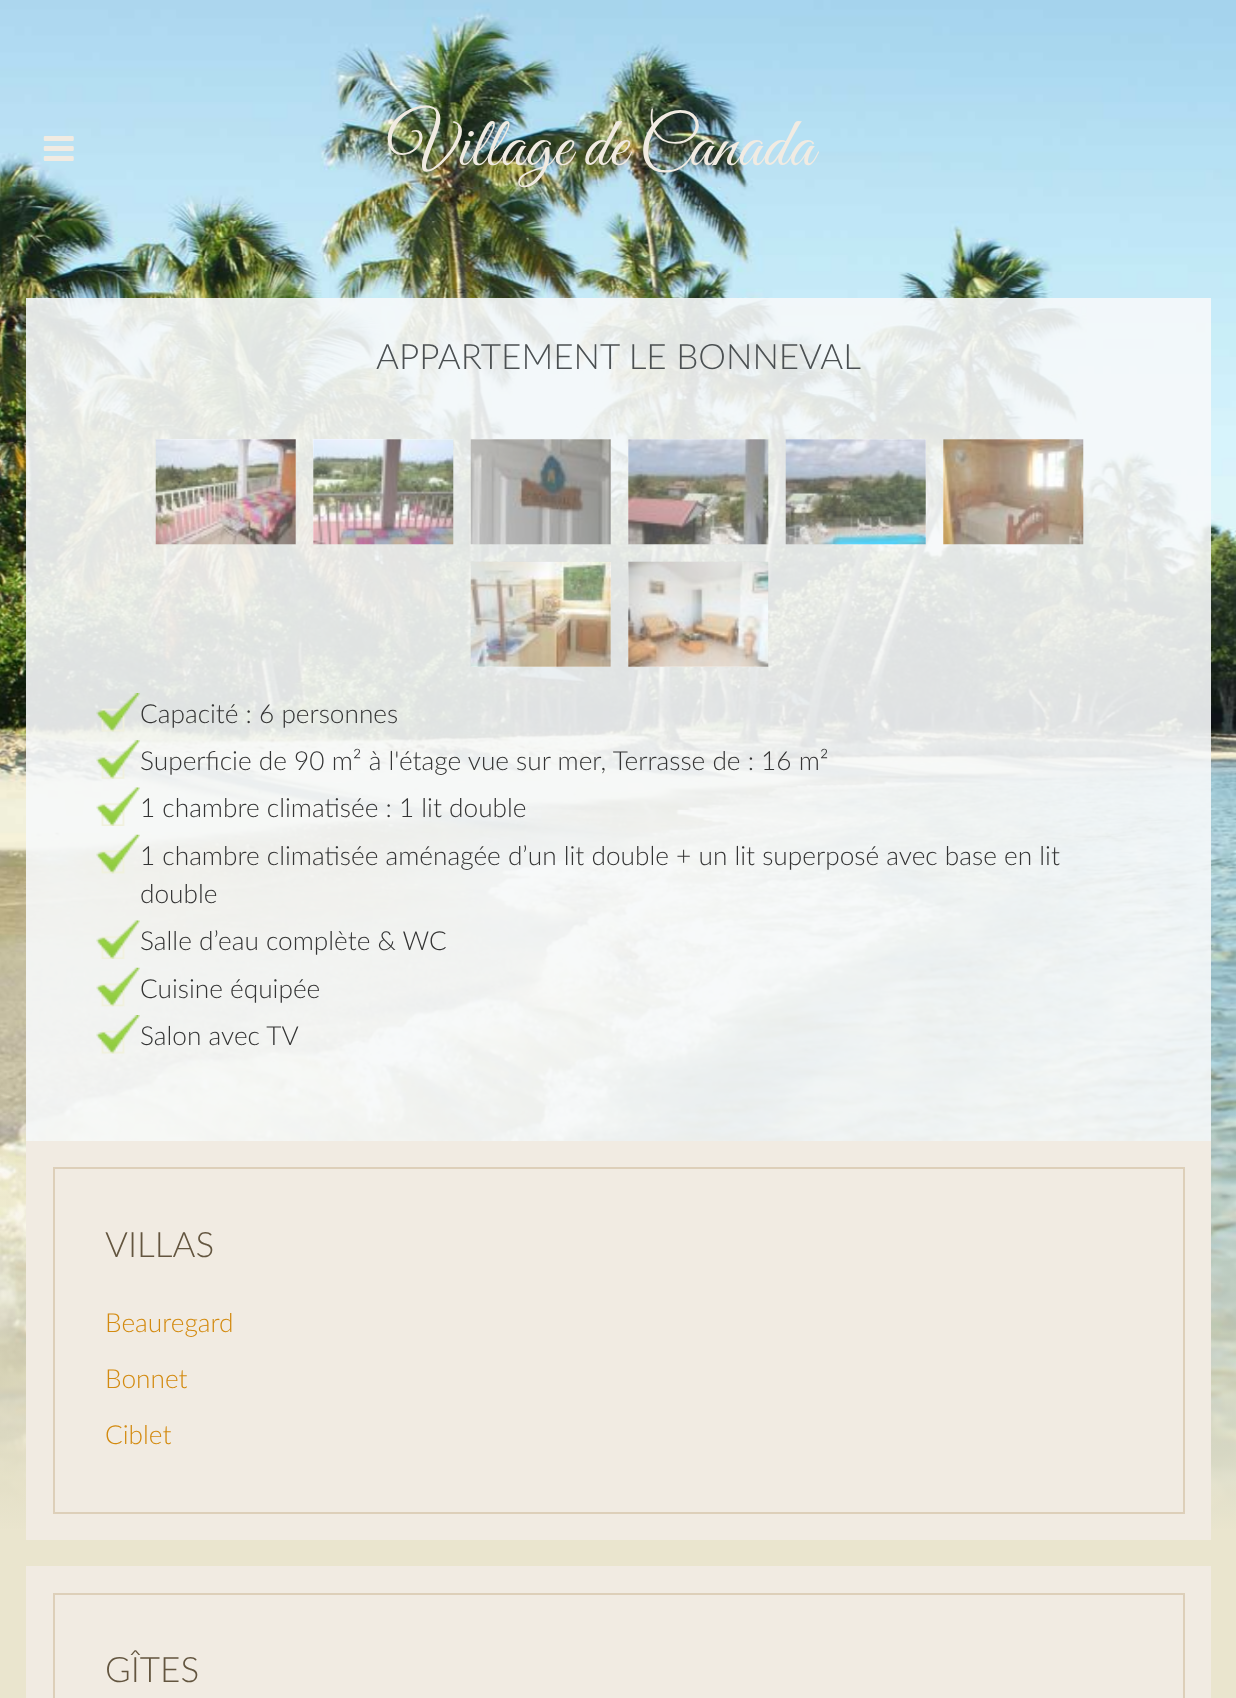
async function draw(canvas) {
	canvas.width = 1236;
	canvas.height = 1698;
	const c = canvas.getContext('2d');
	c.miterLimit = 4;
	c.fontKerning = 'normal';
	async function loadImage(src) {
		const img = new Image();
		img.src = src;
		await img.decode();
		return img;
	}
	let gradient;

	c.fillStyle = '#eae5ce';
	c.fillRect(0, 0, 1236, 1698);
	c.drawImage(await loadImage('img1.png'), 0, 0, 1236, 1530);
	gradient = c.createLinearGradient(619, 0, 619, 1533);
	gradient.addColorStop(0, '#00000000');
	gradient.addColorStop(0.7, '#eae5ce00');
	gradient.addColorStop(1, '#eae5ce');
	c.fillStyle = gradient;
	c.fillRect(0, 1084, 1236, 446);
	c.drawImage(await loadImage('img2.png'), 43, 136, 31, 25);
	c.font = '70px Great Vibes';
	c.fillStyle = '#f1ebe2';
	c.fillText('Village de Canada', 388, 165);
	c.fillStyle = '#f6f8f9e6';
	c.fillRect(26, 298, 1185, 843);
	c.font = '300 35px Lato';
	c.fillStyle = '#4b5052';
	c.fillText('APPARTEMENT LE BONNEVAL', 376, 369);
	c.fillStyle = '#fff';
	c.fillRect(156, 439, 140, 105);
	c.drawImage(await loadImage('img3.png'), 155, 439, 141, 106);
	c.fillRect(313, 439, 140, 105);
	c.drawImage(await loadImage('img4.png'), 313, 439, 141, 106);
	c.fillRect(471, 439, 140, 105);
	c.drawImage(await loadImage('img5.png'), 470, 439, 141, 106);
	c.fillRect(628, 439, 140, 105);
	c.drawImage(await loadImage('img6.png'), 628, 439, 141, 106);
	c.fillRect(786, 439, 140, 105);
	c.drawImage(await loadImage('img7.png'), 785, 439, 141, 106);
	c.fillRect(943, 439, 140, 105);
	c.drawImage(await loadImage('img8.png'), 943, 439, 141, 106);
	c.fillRect(471, 562, 140, 105);
	c.drawImage(await loadImage('img9.png'), 470, 561, 141, 106);
	c.fillRect(628, 562, 140, 105);
	c.drawImage(await loadImage('img10.png'), 628, 561, 141, 106);
	c.drawImage(await loadImage('img11.png'), 96, 693, 44, 39);
	c.font = '300 26.25px Lato';
	c.fillStyle = '#343434';
	c.fillText('Capacité : 6 personnes', 140, 723);
	c.drawImage(await loadImage('img12.png'), 96, 740, 44, 39);
	c.fillText('Superficie de 90 m² à l\'étage vue sur mer, Terrasse de : 16 m²', 140, 770);
	c.drawImage(await loadImage('img13.png'), 96, 787, 44, 39);
	c.fillText('1 chambre climatisée : 1 lit double', 140, 817);
	c.drawImage(await loadImage('img14.png'), 96, 834, 44, 40);
	c.fillText('1 chambre climatisée aménagée d’un lit double + un lit superposé avec base en lit', 140, 865);
	c.fillText('double', 140, 903);
	c.drawImage(await loadImage('img15.png'), 96, 920, 44, 39);
	c.fillText('Salle d’eau complète & WC', 140, 950);
	c.drawImage(await loadImage('img16.png'), 96, 967, 44, 40);
	c.fillText('Cuisine équipée', 140, 998);
	c.drawImage(await loadImage('img17.png'), 96, 1015, 44, 39);
	c.fillText('Salon avec TV', 140, 1045);
	c.fillStyle = '#f1ebe2';
	c.fillRect(26, 1141, 1185, 399);
	c.strokeStyle = '#ddcfb9';
	c.lineWidth = 2;
	c.strokeRect(54, 1168, 1130, 345);
	c.font = '300 35px Lato';
	c.fillStyle = '#63553f';
	c.fillText('VILLAS', 105, 1257);
	c.font = '300 26.25px Lato';
	c.fillStyle = '#d38a0f';
	for (const [text, x, y] of [
		['Beauregard', 105, 1332],
		['Bonnet', 105, 1388],
		['Ciblet', 105, 1444],
	]) {
		c.fillText(text, x, y);
	}
	c.fillStyle = '#f1ebe2';
	c.fillRect(26, 1566, 1185, 132);
	c.strokeRect(54, 1594, 1130, 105);
	c.font = '300 35px Lato';
	c.fillStyle = '#63553f';
	c.fillText('GÎTES', 105, 1682);
}

draw(document.querySelector('canvas'));
